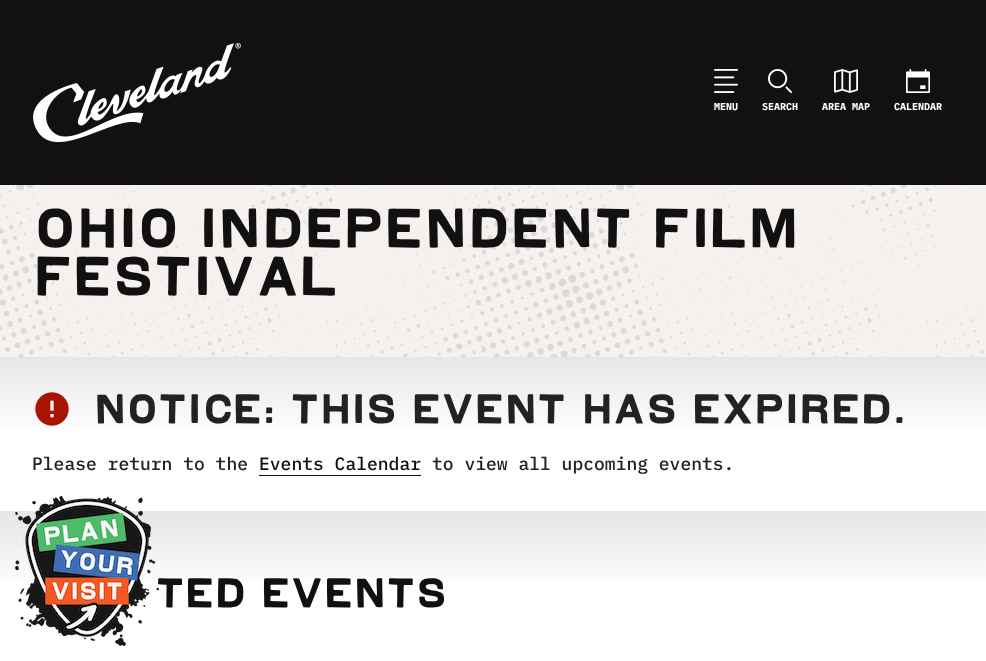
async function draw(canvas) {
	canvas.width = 986;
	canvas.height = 661;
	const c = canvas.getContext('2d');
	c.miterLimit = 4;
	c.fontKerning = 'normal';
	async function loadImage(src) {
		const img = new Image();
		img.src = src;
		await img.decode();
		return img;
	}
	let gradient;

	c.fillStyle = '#fff';
	c.fillRect(0, 0, 986, 661);
	c.fillStyle = '#111';
	c.fillRect(0, 0, 986, 185);
	c.drawImage(await loadImage('img1.png'), 33, 42, 208, 101);
	c.drawImage(await loadImage('img2.png'), 714, 69, 24, 24);
	c.font = 'bold 10px IBM Plex Mono';
	c.fillStyle = '#fff';
	c.fillText('MENU', 714, 110);
	c.drawImage(await loadImage('img3.png'), 768, 69, 24, 24);
	c.fillText('SEARCH', 762, 110);
	c.drawImage(await loadImage('img4.png'), 834, 69, 24, 24);
	c.fillText('AREA MAP', 822, 110);
	c.drawImage(await loadImage('img5.png'), 906, 69, 24, 24);
	c.fillText('CALENDAR', 894, 110);
	c.drawImage(await loadImage('img6.png'), 0, 185, 986, 172);
	c.letterSpacing = '-4.8px';
	c.font = '48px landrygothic';
	c.fillStyle = '#111';
	c.fillText('OHIO INDEPENDENT FILM', 32, 247);
	c.fillText('FESTIVAL', 32, 295);
	gradient = c.createLinearGradient(493, 357, 493, 437);
	gradient.addColorStop(0, '#e6e6e6');
	gradient.addColorStop(1, '#fff');
	c.fillStyle = gradient;
	c.fillRect(0, 357, 986, 72);
	c.drawImage(await loadImage('img7.png'), 35, 392, 34, 34);
	c.letterSpacing = '-3.6px';
	c.font = '36px landrygothic';
	c.fillStyle = '#222';
	c.fillText('NOTICE: THIS EVENT HAS EXPIRED.', 92, 423);
	c.letterSpacing = '0px';
	c.font = '500 18px IBM Plex Mono';
	c.fillText('Please return to the', 32, 470);
	c.fillStyle = '#111';
	c.fillText('Events Calendar', 259, 470);
	c.fillRect(259, 475, 162, 1);
	c.fillStyle = '#222';
	c.fillText('to view all upcoming events.', 432, 470);
	gradient = c.createLinearGradient(493, 511, 493, 591);
	gradient.addColorStop(0, '#e6e6e6');
	gradient.addColorStop(1, '#fff');
	c.fillStyle = gradient;
	c.fillRect(0, 511, 986, 72);
	c.letterSpacing = '-3.6px';
	c.font = '36px landrygothic';
	c.fillStyle = '#111';
	c.fillText('ted Events', 154, 607);
	c.drawImage(await loadImage('img8.png'), 15, 496, 144, 150);
}

draw(document.querySelector('canvas'));
